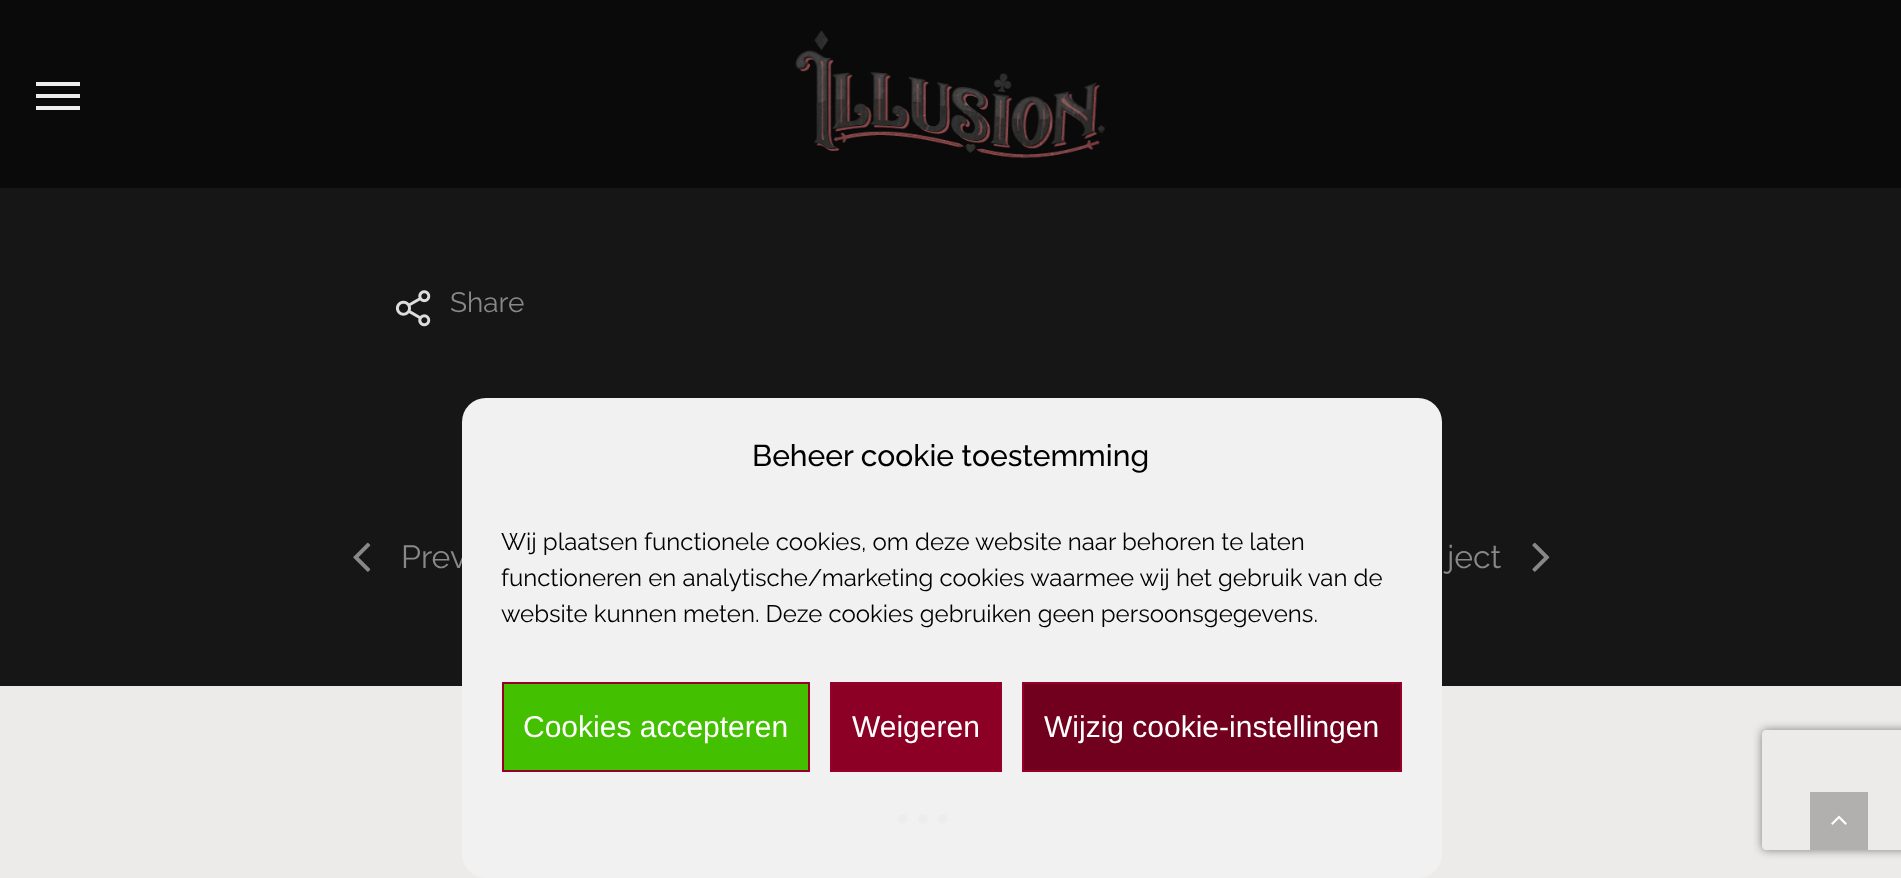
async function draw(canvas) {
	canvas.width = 1901;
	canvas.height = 878;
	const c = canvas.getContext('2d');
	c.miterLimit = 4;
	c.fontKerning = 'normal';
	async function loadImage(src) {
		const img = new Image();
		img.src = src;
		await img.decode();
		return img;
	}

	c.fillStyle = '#161616';
	c.fillRect(0, 0, 1901, 878);
	for (const [x, y, w, h, color] of [
		[0, 0, 1901, 188, '#0a0a0a'],
		[36, 82, 44, 4, '#ededed'],
		[36, 106, 44, 4, '#ededed'],
		[36, 94, 44, 4, '#ededed'],
	]) {
		c.fillStyle = color;
		c.fillRect(x, y, w, h);
	}
	c.drawImage(await loadImage('img1.png'), 795, 30, 310, 129);
	c.drawImage(await loadImage('img2.png'), 395, 290, 36, 37);
	c.font = '28px Raleway';
	c.fillStyle = '#888';
	c.fillText('Share', 450, 312);
	c.drawImage(await loadImage('img3.png'), 353, 542, 18, 30);
	c.font = '32px Raleway';
	c.fillText('Prev', 401, 568);
	c.fillText('ject', 1447, 568);
	c.drawImage(await loadImage('img4.png'), 1532, 542, 18, 30);
	c.fillStyle = '#ecebe9';
	c.fillRect(0, 686, 1901, 192);
	c.fillStyle = '#f1f1f1';
	c.beginPath();
	c.roundRect(462, 398, 980, 480, 24);
	c.fill();
	c.font = '500 30px Raleway';
	c.fillStyle = '#000';
	c.fillText('Beheer cookie toestemming', 752, 466);
	c.font = '24px Raleway';
	for (const [text, x, y] of [
		['Wij plaatsen functionele cookies, om deze website naar behoren te laten', 501, 550],
		['functioneren en analytische/marketing cookies waarmee wij het gebruik van de', 501, 586],
		['website kunnen meten. Deze cookies gebruiken geen persoonsgegevens.', 501, 622],
	]) {
		c.fillText(text, x, y);
	}
	c.fillStyle = '#43c100';
	c.beginPath();
	c.rect(503, 683, 306, 88);
	c.fill();
	c.strokeStyle = '#960028';
	c.lineWidth = 2;
	c.stroke();
	c.font = '30px Liberation Sans';
	c.fillStyle = '#fff';
	c.fillText('Cookies accepteren', 523, 737);
	c.fillStyle = '#8c0025';
	c.beginPath();
	c.rect(831, 683, 170, 88);
	c.fill();
	c.stroke();
	c.fillStyle = '#fff';
	c.fillText('Weigeren', 852, 737);
	c.fillStyle = '#70001d';
	c.beginPath();
	c.rect(1023, 683, 378, 88);
	c.fill();
	c.stroke();
	c.fillStyle = '#fff';
	c.fillText('Wijzig cookie-instellingen', 1044, 737);
	c.fillStyle = '#ededed';
	c.beginPath();
	c.arc(903, 819, 5, 0, 2 * Math.PI);
	c.fill();
	c.beginPath();
	c.arc(923, 819, 5, 0, 2 * Math.PI);
	c.fill();
	c.beginPath();
	c.arc(943, 819, 5, 0, 2 * Math.PI);
	c.fill();
	c.save();
	c.beginPath();
	c.moveTo(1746, 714);
	c.lineTo(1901, 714);
	c.lineTo(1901, 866);
	c.lineTo(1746, 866);
	c.closePath();
	c.moveTo(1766, 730);
	c.lineTo(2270, 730);
	c.bezierCurveTo(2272, 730, 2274, 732, 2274, 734);
	c.lineTo(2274, 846);
	c.bezierCurveTo(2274, 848, 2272, 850, 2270, 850);
	c.lineTo(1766, 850);
	c.bezierCurveTo(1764, 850, 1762, 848, 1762, 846);
	c.lineTo(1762, 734);
	c.bezierCurveTo(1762, 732, 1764, 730, 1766, 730);
	c.closePath();
	c.clip('evenodd');
	c.fillStyle = '#808080';
	c.filter = 'blur(5px)';
	c.beginPath();
	c.roundRect(1762, 730, 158, 120, 4);
	c.fill();
	c.filter = 'none';
	c.restore();
	c.fillStyle = '#b1b0af';
	c.fillRect(1810, 792, 58, 58);
	c.drawImage(await loadImage('img5.png'), 1831, 815, 16, 10);
}

draw(document.querySelector('canvas'));
